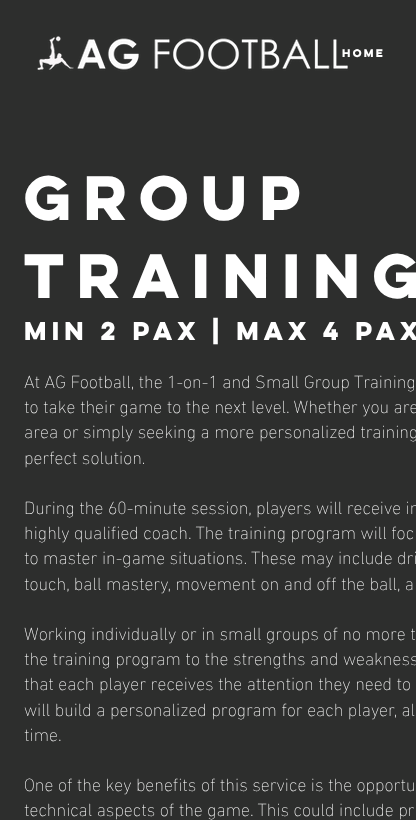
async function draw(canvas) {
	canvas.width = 416;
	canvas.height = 820;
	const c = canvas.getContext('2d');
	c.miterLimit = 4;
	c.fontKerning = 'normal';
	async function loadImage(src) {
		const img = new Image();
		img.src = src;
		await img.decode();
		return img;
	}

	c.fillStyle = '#2d2e2d';
	c.fillRect(0, 0, 416, 820);
	c.font = 'bold 10px "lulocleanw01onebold"';
	c.fillStyle = '#fff';
	c.fillText('HOME', 342, 57);
	c.drawImage(await loadImage('img1.png'), 37, 36, 311, 36);
	c.font = 'bold 56px "lulocleanw01onebold"';
	c.fillText('Group', 24, 220);
	c.fillText('Training', 24, 298);
	c.font = 'bold 23px "lulocleanw01onebold"';
	c.fillText('Min 2 pax | Max 4 pax', 24, 340);
	c.font = '200 18px "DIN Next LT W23"';
	for (const [text, x, y] of [
		['At AG Football, the 1-on-1 and Small Group Training', 24, 388],
		['to take their game to the next level. Whether you are', 24, 413],
		['area or simply seeking a more personalized training', 24, 438],
		['perfect solution.', 24, 464],
		['During the 60-minute session, players will receive in', 24, 514],
		['highly qualified coach. The training program will foc', 24, 539],
		['to master in-game situations. These may include dri', 24, 564],
		['touch, ball mastery, movement on and off the ball, a', 24, 590],
		['Working individually or in small groups of no more t', 24, 640],
		['the training program to the strengths and weakness', 24, 665],
		['that each player receives the attention they need to', 24, 690],
		['will build a personalized program for each player, al', 24, 716],
		['time.', 24, 741],
		['One of the key benefits of this service is the opportu', 24, 791],
		['technical aspects of the game. This could include pr', 24, 816],
	]) {
		c.fillText(text, x, y);
	}
}

draw(document.querySelector('canvas'));
